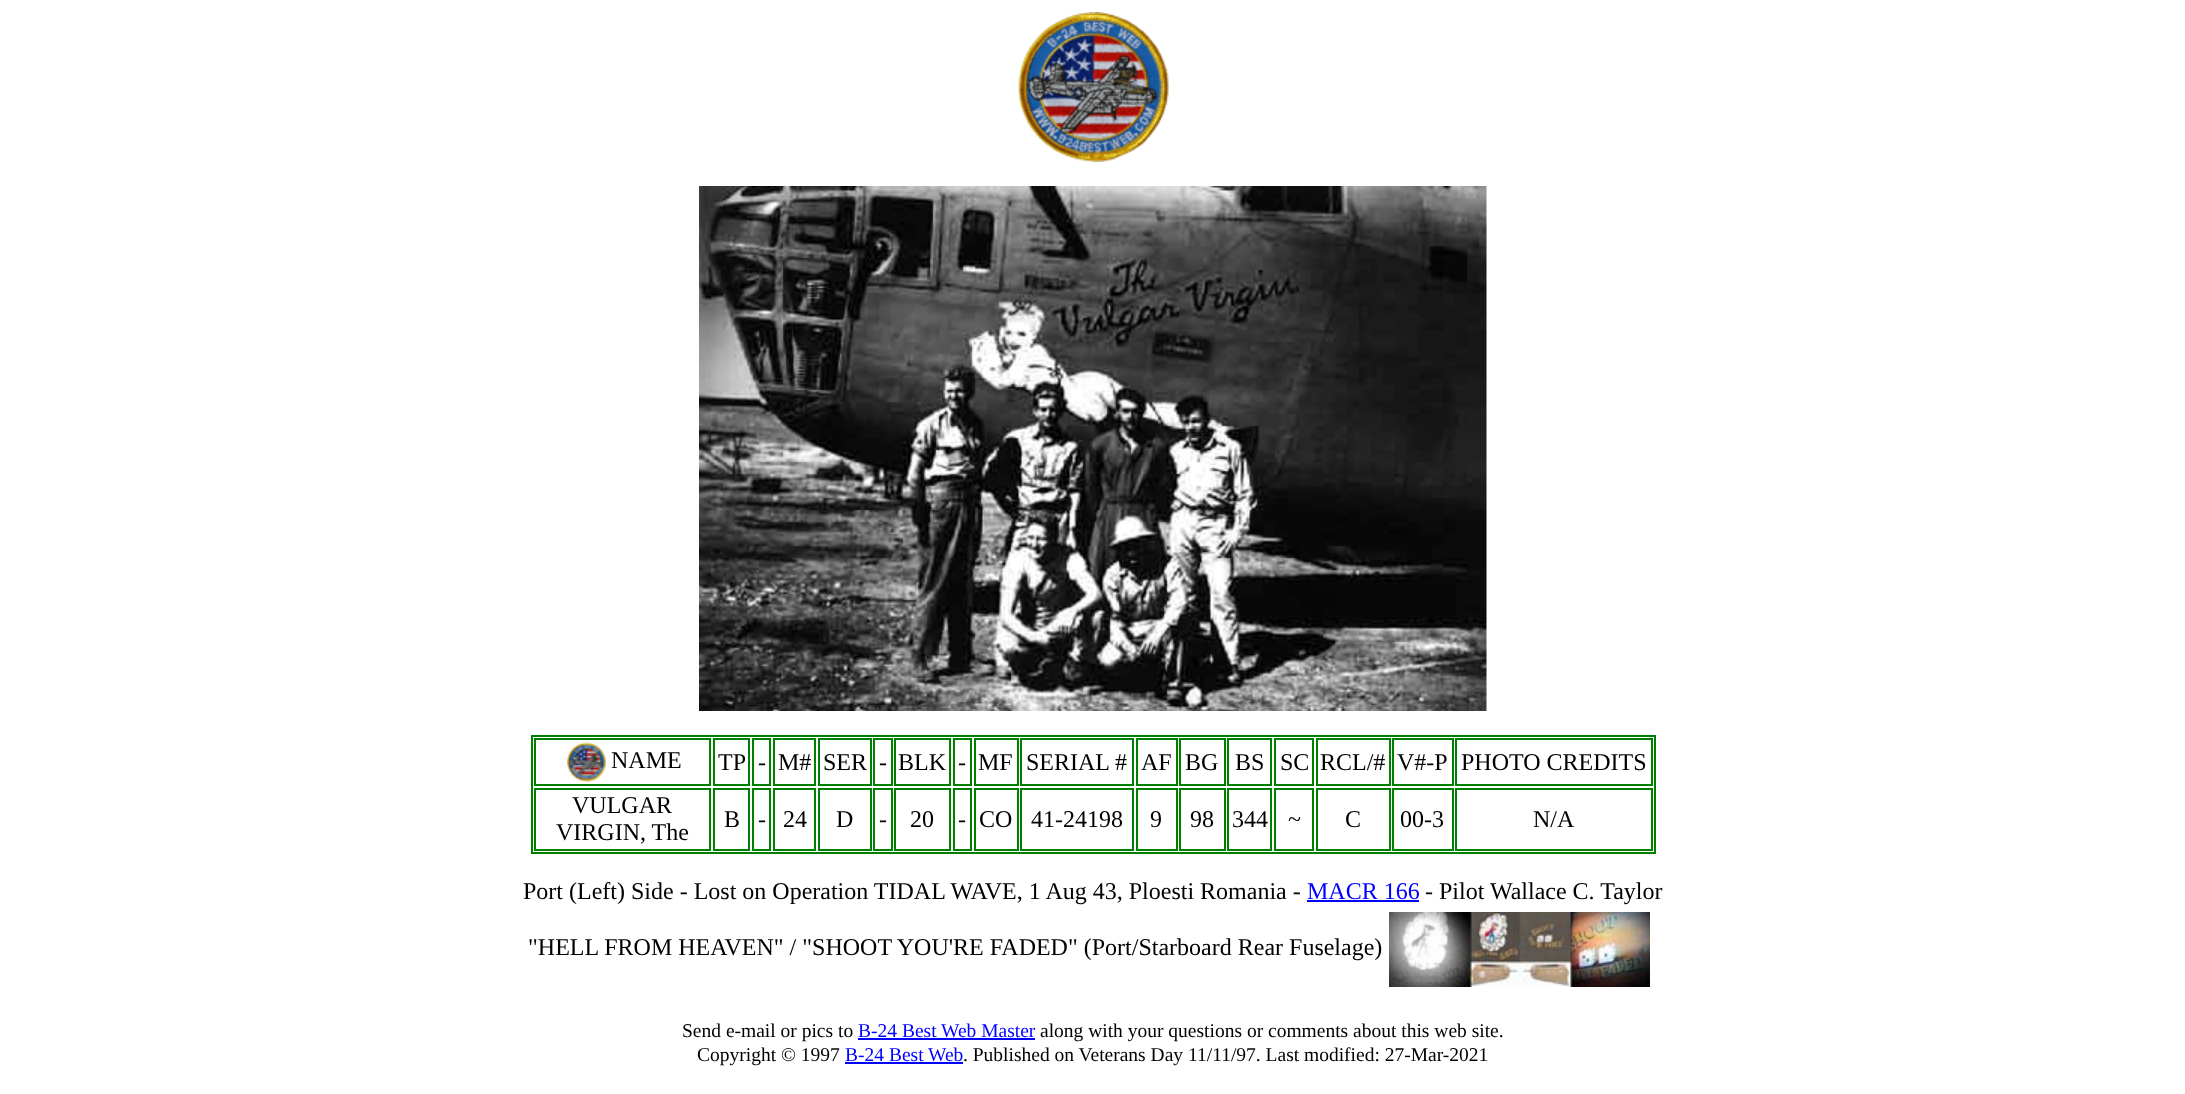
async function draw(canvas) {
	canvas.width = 2185;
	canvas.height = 1094;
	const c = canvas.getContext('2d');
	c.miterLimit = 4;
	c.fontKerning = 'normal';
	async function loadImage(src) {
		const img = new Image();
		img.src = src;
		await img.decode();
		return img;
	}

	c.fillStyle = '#fff';
	c.fillRect(0, 0, 2185, 1094);
	c.drawImage(await loadImage('img1.png'), 1018, 12, 151, 150);
	c.drawImage(await loadImage('img2.png'), 699, 186, 788, 525);
	c.strokeStyle = '#008000';
	c.lineWidth = 2;
	c.strokeRect(532, 736, 1123, 117);
	c.strokeRect(535, 739, 175, 46);
	c.drawImage(await loadImage('img3.png'), 567, 742, 39, 40);
	c.font = '24px Liberation Serif';
	c.fillStyle = '#000';
	c.fillText('NAME', 611, 768);
	c.strokeRect(714, 739, 35, 46);
	c.fillText('TP', 718, 770);
	c.strokeRect(753, 739, 17, 46);
	c.fillText('-', 758, 770);
	c.strokeRect(774, 739, 41, 46);
	c.fillText('M#', 778, 770);
	c.strokeRect(819, 739, 52, 46);
	c.fillText('SER', 823, 770);
	c.strokeRect(874, 739, 18, 46);
	c.fillText('-', 879, 770);
	c.strokeRect(895, 739, 55, 46);
	c.fillText('BLK', 898, 770);
	c.strokeRect(954, 739, 17, 46);
	c.fillText('-', 958, 770);
	c.strokeRect(975, 739, 43, 46);
	c.fillText('MF', 978, 770);
	c.strokeRect(1021, 739, 112, 46);
	c.fillText('SERIAL #', 1026, 770);
	c.strokeRect(1137, 739, 40, 46);
	c.fillText('AF', 1141, 770);
	c.strokeRect(1180, 739, 45, 46);
	c.fillText('BG', 1185, 770);
	c.strokeRect(1228, 739, 43, 46);
	c.fillText('BS', 1235, 770);
	c.strokeRect(1275, 739, 38, 46);
	c.fillText('SC', 1280, 770);
	c.strokeRect(1317, 739, 73, 46);
	c.fillText('RCL/#', 1320, 770);
	c.strokeRect(1393, 739, 60, 46);
	c.fillText('V#-P', 1397, 770);
	c.strokeRect(1456, 739, 196, 46);
	c.fillText('PHOTO CREDITS', 1461, 770);
	c.strokeRect(535, 789, 175, 61);
	c.fillText('VULGAR', 572, 813);
	c.fillText('VIRGIN, The', 556, 840);
	c.strokeRect(714, 789, 35, 61);
	c.fillText('B', 724, 827);
	c.strokeRect(753, 789, 17, 61);
	c.fillText('-', 758, 827);
	c.strokeRect(774, 789, 41, 61);
	c.fillText('24', 783, 827);
	c.strokeRect(819, 789, 52, 61);
	c.fillText('D', 836, 827);
	c.strokeRect(874, 789, 18, 61);
	c.fillText('-', 879, 827);
	c.strokeRect(895, 789, 55, 61);
	c.fillText('20', 910, 827);
	c.strokeRect(954, 789, 17, 61);
	c.fillText('-', 958, 827);
	c.strokeRect(975, 789, 43, 61);
	c.fillText('CO', 979, 827);
	c.strokeRect(1021, 789, 112, 61);
	c.fillText('41-24198', 1031, 827);
	c.strokeRect(1137, 789, 40, 61);
	c.fillText('9', 1150, 827);
	c.strokeRect(1180, 789, 45, 61);
	c.fillText('98', 1190, 827);
	c.strokeRect(1228, 789, 43, 61);
	c.fillText('344', 1232, 827);
	c.strokeRect(1275, 789, 38, 61);
	c.fillText('~', 1288, 827);
	c.strokeRect(1317, 789, 73, 61);
	c.fillText('C', 1345, 827);
	c.strokeRect(1393, 789, 60, 61);
	c.fillText('00-3', 1400, 827);
	c.strokeRect(1456, 789, 196, 61);
	c.fillText('N/A', 1533, 827);
	c.fillText('Port (Left) Side - Lost on Operation TIDAL WAVE, 1 Aug 43, Ploesti Romania -', 523, 899);
	c.fillStyle = '#00f';
	c.fillText('MACR 166', 1307, 899);
	c.fillRect(1307, 900, 112, 2);
	c.fillStyle = '#000';
	c.fillText('- Pilot Wallace C. Taylor', 1425, 899);
	c.fillText('"HELL FROM HEAVEN" / "SHOOT YOU\'RE FADED" (Port/Starboard Rear Fuselage)', 528, 955);
	c.drawImage(await loadImage('img4.png'), 1389, 912, 261, 75);
	c.font = '19.5px Liberation Serif';
	c.fillText('Send e-mail or pics to', 682, 1037);
	c.fillStyle = '#00f';
	c.fillText('B-24 Best Web Master', 858, 1037);
	c.fillRect(858, 1038, 177, 2);
	c.fillStyle = '#000';
	c.fillText('along with your questions or comments about this web site.', 1040, 1037);
	c.fillText('Copyright © 1997', 697, 1061);
	c.fillStyle = '#00f';
	c.fillText('B-24 Best Web', 845, 1061);
	c.fillStyle = '#000';
	c.fillText('. Published on Veterans Day 11/11/97. Last modified: 27-Mar-2021', 963, 1061);
	c.fillStyle = '#00f';
	c.fillRect(845, 1062, 118, 2);
}

draw(document.querySelector('canvas'));
